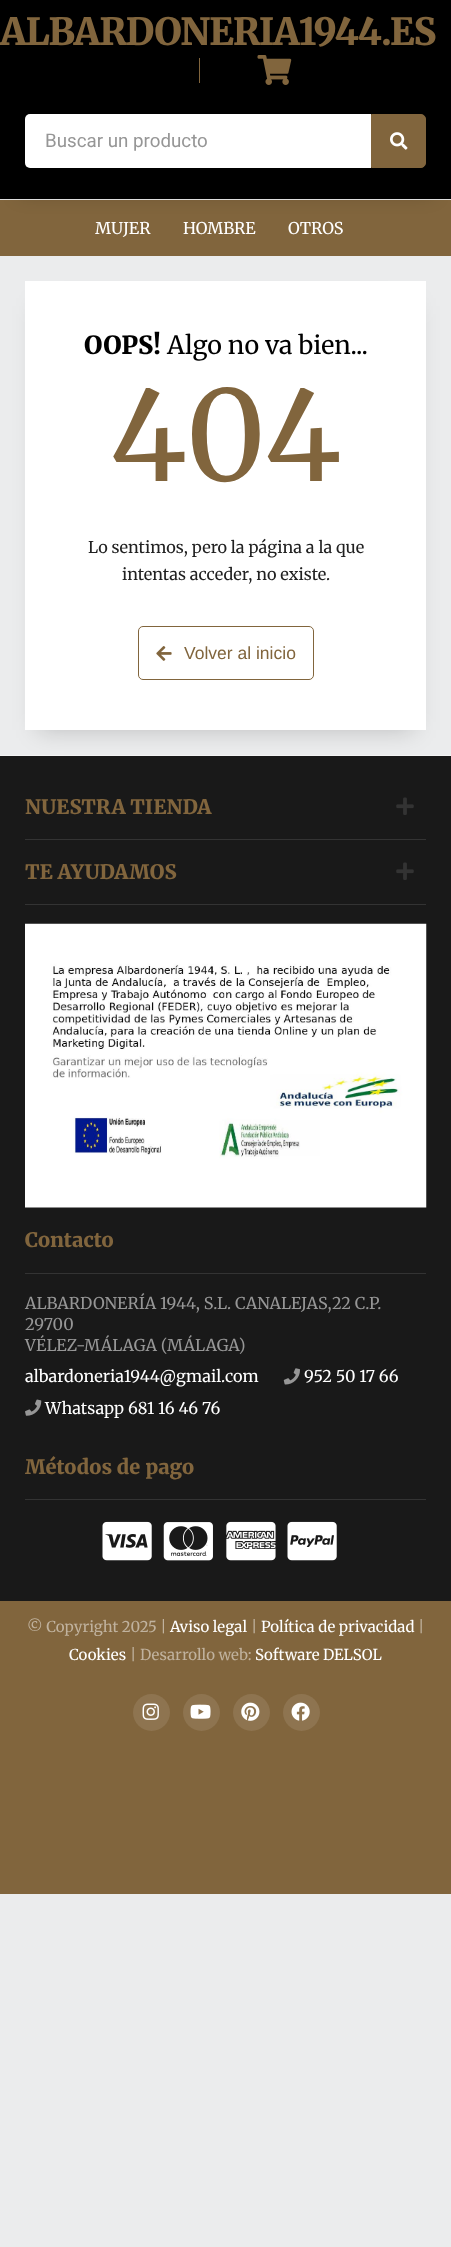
async function draw(canvas) {
	canvas.width = 451;
	canvas.height = 2247;
	const c = canvas.getContext('2d');
	c.miterLimit = 4;
	c.fontKerning = 'normal';
	async function loadImage(src) {
		const img = new Image();
		img.src = src;
		await img.decode();
		return img;
	}

	c.fillStyle = '#ebeced';
	c.fillRect(0, 0, 451, 2247);
	c.fillStyle = '#000';
	c.fillRect(0, 0, 451, 114);
	c.letterSpacing = '-1.25px';
	c.font = '900 37.5px Merriweather';
	c.fillStyle = '#81653d';
	c.fillText('ALBARDONERIA1944.ES', 0, 45);
	c.fillRect(199, 58, 1, 25);
	c.drawImage(await loadImage('img1.png'), 257, 55, 35, 30);
	c.fillRect(0, 200, 451, 56);
	c.fillStyle = '#00000033';
	c.filter = 'blur(9.5px)';
	c.beginPath();
	c.rect(19, 145, 414, 49);
	c.fill();
	c.filter = 'none';
	c.fillStyle = '#000';
	c.fillRect(0, 114, 451, 85);
	c.fillStyle = '#ddd';
	c.fillRect(0, 199, 451, 1);
	c.fillStyle = '#fff';
	c.beginPath();
	c.roundRect(25, 114, 346, 54, [5, 0, 0, 5]);
	c.fill();
	c.letterSpacing = '0px';
	c.font = '18.75px Roboto';
	c.fillStyle = '#969696';
	c.fillText('Buscar un producto', 45, 147);
	c.fillStyle = '#81653d';
	c.beginPath();
	c.roundRect(371.5, 114.5, 54, 53, [0, 4.5, 4.5, 0]);
	c.fill();
	c.strokeStyle = '#81653d';
	c.stroke();
	c.drawImage(await loadImage('img2.png'), 390, 132, 18, 18);
	c.font = '16.25px Merriweather';
	c.fillStyle = '#fff';
	for (const [text, x, y] of [
		['MUJER', 95, 234],
		['HOMBRE', 183, 234],
		['OTROS', 288, 234],
	]) {
		c.fillText(text, x, y);
	}
	c.fillStyle = '#191919';
	c.fillRect(0, 756, 451, 845);
	c.fillStyle = '#f4f4f4';
	c.fillRect(0, 755, 451, 1);
	c.fillStyle = '#00000033';
	c.filter = 'blur(12.5px)';
	c.beginPath();
	c.rect(38, 306, 376, 424);
	c.fill();
	c.filter = 'none';
	c.fillStyle = '#fff';
	c.fillRect(25, 281, 401, 449);
	c.font = '900 25px Merriweather';
	c.fillStyle = '#000';
	c.fillText('OOPS!', 84, 354);
	c.font = '25px Merriweather';
	c.fillText('Algo no va bien...', 167, 354);
	c.font = '125px Merriweather';
	c.fillStyle = '#81653d';
	c.fillText('404', 110, 481);
	c.font = '16.25px Merriweather';
	c.fillStyle = '#212121';
	c.fillText('Lo sentimos, pero la página a la que', 88, 553);
	c.fillText('intentas acceder, no existe.', 122, 580);
	c.beginPath();
	c.roundRect(138.5, 626.5, 175, 53, 4.5);
	c.stroke();
	c.drawImage(await loadImage('img3.png'), 156, 646, 16, 15);
	c.font = '17.5px Liberation Sans';
	c.fillStyle = '#81653d';
	c.fillText('Volver al inicio', 184, 659);
	c.fillStyle = '#333';
	c.fillRect(25, 839, 401, 1);
	c.font = '900 20px Merriweather';
	c.fillStyle = '#81653d';
	c.fillText('NUESTRA TIENDA', 25, 814);
	c.drawImage(await loadImage('img4.png'), 396, 797, 18, 18);
	c.fillStyle = '#333';
	c.fillRect(25, 904, 401, 1);
	c.fillStyle = '#81653d';
	c.fillText('TE AYUDAMOS', 25, 879);
	c.drawImage(await loadImage('img4.png'), 396, 862, 18, 18);
	c.drawImage(await loadImage('img5.png'), 25, 923, 402, 285);
	c.fillStyle = '#333';
	c.fillRect(25, 1273, 401, 1);
	c.fillStyle = '#81653d';
	c.fillText('Contacto', 25, 1247);
	c.font = '16.25px Merriweather';
	c.fillStyle = '#969696';
	for (const [text, x, y] of [
		['ALBARDONERÍA 1944, S.L. CANALEJAS,22 C.P.', 25, 1309],
		['29700', 25, 1330],
		['VÉLEZ-MÁLAGA (MÁLAGA)', 25, 1351],
	]) {
		c.fillText(text, x, y);
	}
	c.fillStyle = '#fff';
	c.fillText('albardoneria1944@gmail.com', 25, 1382);
	c.drawImage(await loadImage('img6.png'), 283, 1368, 17, 17);
	c.fillText('952 50 17 66', 304, 1382);
	c.drawImage(await loadImage('img7.png'), 25, 1399, 17, 17);
	c.fillText('Whatsapp 681 16 46 76', 45, 1414);
	c.fillStyle = '#333';
	c.fillRect(25, 1499, 401, 1);
	c.font = '900 20px Merriweather';
	c.fillStyle = '#81653d';
	c.fillText('Métodos de pago', 25, 1474);
	c.drawImage(await loadImage('img8.png'), 102, 1521, 50, 40);
	c.drawImage(await loadImage('img9.png'), 163, 1522, 50, 39);
	c.drawImage(await loadImage('img10.png'), 226, 1521, 50, 40);
	c.drawImage(await loadImage('img11.png'), 287, 1521, 50, 40);
	c.fillRect(0, 1601, 451, 293);
	c.font = '15px Merriweather';
	c.fillStyle = '#c0b29e';
	c.fillText('© Copyright 2025 |', 27, 1632);
	c.fillStyle = '#fff';
	c.fillText('Aviso legal', 170, 1632);
	c.fillStyle = '#c0b29e';
	c.fillText('|', 251, 1632);
	c.fillStyle = '#fff';
	c.fillText('Política de privacidad', 261, 1632);
	c.fillStyle = '#c0b29e';
	c.fillText('|', 418, 1632);
	c.fillStyle = '#fff';
	c.fillText('Cookies', 69, 1660);
	c.fillStyle = '#c0b29e';
	c.fillText('| Desarrollo web:', 130, 1660);
	c.fillStyle = '#fff';
	c.fillText('Software DELSOL', 255, 1660);
	c.fillStyle = '#8e7450';
	c.beginPath();
	c.arc(151.5, 1712.5, 18.5, 0, 2 * Math.PI);
	c.fill();
	c.drawImage(await loadImage('img12.png'), 142, 1703, 17, 17);
	c.beginPath();
	c.arc(201.5, 1712.5, 18.5, 0, 2 * Math.PI);
	c.fill();
	c.drawImage(await loadImage('img13.png'), 190, 1704, 21, 15);
	c.beginPath();
	c.arc(251.5, 1712.5, 18.5, 0, 2 * Math.PI);
	c.fill();
	c.drawImage(await loadImage('img14.png'), 241, 1702, 19, 19);
	c.beginPath();
	c.arc(301.5, 1712.5, 18.5, 0, 2 * Math.PI);
	c.fill();
	c.drawImage(await loadImage('img15.png'), 291, 1702, 19, 19);
}

draw(document.querySelector('canvas'));
